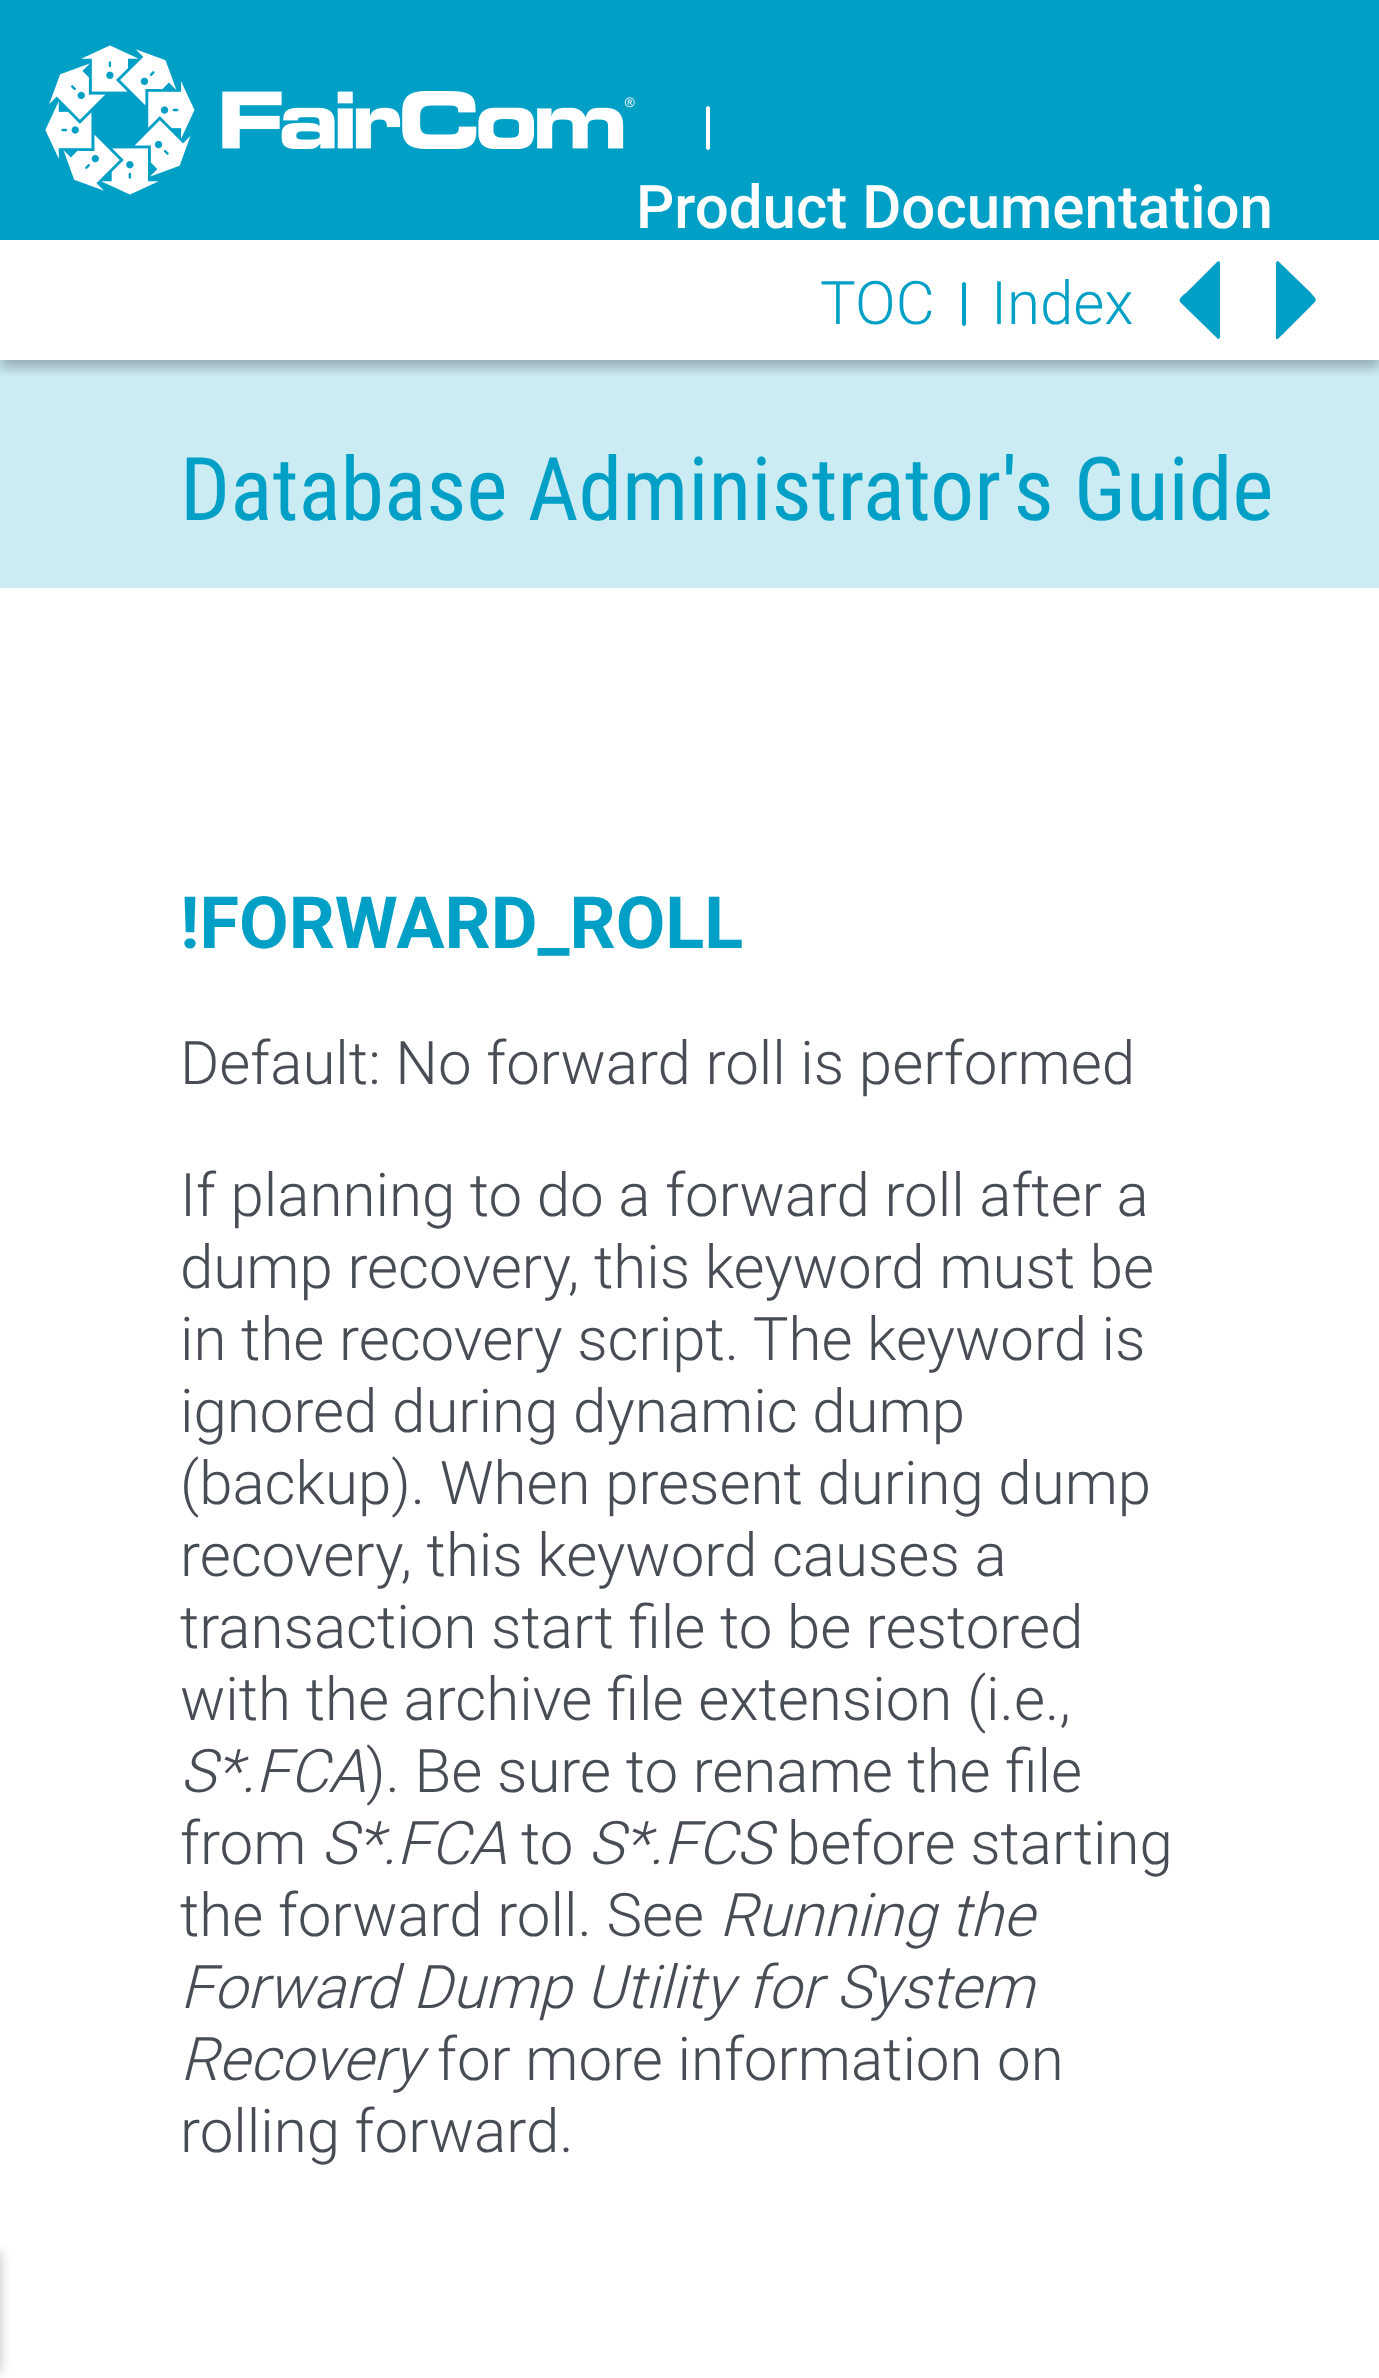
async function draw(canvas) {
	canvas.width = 1379;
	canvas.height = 2378;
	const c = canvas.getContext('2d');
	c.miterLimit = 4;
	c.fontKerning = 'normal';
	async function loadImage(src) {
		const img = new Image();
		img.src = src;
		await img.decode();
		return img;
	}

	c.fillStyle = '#fff';
	c.fillRect(0, 0, 1379, 2378);
	c.fillStyle = '#00a0c6';
	c.fillRect(0, 0, 1379, 240);
	c.drawImage(await loadImage('img1.png'), 45, 45, 590, 150);
	c.fillStyle = '#fff';
	c.beginPath();
	c.moveTo(708, 150);
	c.bezierCurveTo(707, 150, 706, 149, 706, 148);
	c.lineTo(706, 108);
	c.bezierCurveTo(706, 107, 707, 106, 708, 106);
	c.bezierCurveTo(709, 106, 710, 107, 710, 108);
	c.lineTo(710, 148);
	c.bezierCurveTo(710, 149, 709, 150, 708, 150);
	c.closePath();
	c.fill();
	c.font = '500 60px Roboto';
	c.fillText('Product Documentation', 636, 228);
	c.fillStyle = '#ccecf4';
	c.fillRect(0, 360, 1379, 228);
	c.save();
	c.beginPath();
	c.rect(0, 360, 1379, 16);
	c.clip();
	c.fillStyle = '#00000040';
	c.filter = 'blur(6px)';
	c.beginPath();
	c.rect(0, 248, 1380, 120);
	c.fill();
	c.filter = 'none';
	c.restore();
	c.font = '300 60px Roboto';
	c.fillStyle = '#00a0c6';
	c.fillText('TOC', 820, 324);
	c.beginPath();
	c.moveTo(964, 326);
	c.bezierCurveTo(963, 326, 962, 325, 962, 324);
	c.lineTo(962, 284);
	c.bezierCurveTo(962, 283, 963, 282, 964, 282);
	c.bezierCurveTo(965, 282, 966, 283, 966, 284);
	c.lineTo(966, 324);
	c.bezierCurveTo(966, 325, 965, 326, 964, 326);
	c.closePath();
	c.fill();
	c.fillText('Index', 991, 324);
	c.beginPath();
	c.moveTo(1217, 262);
	c.lineTo(1186, 293);
	c.bezierCurveTo(1183, 295, 1178, 299, 1180, 302);
	c.lineTo(1218, 339);
	c.bezierCurveTo(1219, 339, 1220, 338, 1220, 337);
	c.lineTo(1220, 263);
	c.bezierCurveTo(1220, 261, 1218, 261, 1217, 262);
	c.closePath();
	c.fill();
	c.beginPath();
	c.moveTo(1276, 263);
	c.lineTo(1276, 325);
	c.bezierCurveTo(1276, 342, 1274, 343, 1285, 332);
	c.lineTo(1309, 308);
	c.bezierCurveTo(1318, 299, 1318, 301, 1310, 292);
	c.lineTo(1278, 261);
	c.bezierCurveTo(1277, 261, 1276, 262, 1276, 263);
	c.closePath();
	c.fill();
	c.font = '88px Roboto Condensed';
	c.fillText('Database Administrator\'s Guide', 180, 520);
	c.font = 'bold 72px Roboto';
	c.fillText('!FORWARD_ROLL', 180, 948);
	c.font = '300 60px Roboto';
	c.fillStyle = '#474c55';
	for (const [text, x, y] of [
		['Default: No forward roll is performed', 180, 1084],
		['If planning to do a forward roll after a', 180, 1216],
		['dump recovery, this keyword must be', 180, 1288],
		['in the recovery script. The keyword is', 180, 1360],
		['ignored during dynamic dump', 180, 1432],
		['(backup). When present during dump', 180, 1504],
		['recovery, this keyword causes a', 180, 1576],
		['transaction start file to be restored', 180, 1648],
		['with the archive file extension (i.e.,', 180, 1720],
	]) {
		c.fillText(text, x, y);
	}
	c.font = 'italic 300 60px Roboto';
	c.fillText('S*.FCA', 180, 1792);
	c.font = '300 60px Roboto';
	c.fillText('). Be sure to rename the file', 366, 1792);
	c.fillText('from', 180, 1864);
	c.font = 'italic 300 60px Roboto';
	c.fillText('S*.FCA', 321, 1864);
	c.font = '300 60px Roboto';
	c.fillText('to', 521, 1864);
	c.font = 'italic 300 60px Roboto';
	c.fillText('S*.FCS', 588, 1864);
	c.font = '300 60px Roboto';
	c.fillText('before starting', 787, 1864);
	c.fillText('the forward roll. See', 180, 1936);
	c.font = 'italic 300 60px Roboto';
	for (const [text, x, y] of [
		['Running the', 719, 1936],
		['Forward Dump Utility for System', 180, 2008],
		['Recovery', 180, 2080],
	]) {
		c.fillText(text, x, y);
	}
	c.font = '300 60px Roboto';
	c.fillText('for more information on', 437, 2080);
	c.fillText('rolling forward.', 180, 2152);
	c.fillStyle = '#00000040';
	c.filter = 'blur(6px)';
	c.beginPath();
	c.rect(-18, 2252, 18, 120);
	c.fill();
	c.filter = 'none';
}

draw(document.querySelector('canvas'));
